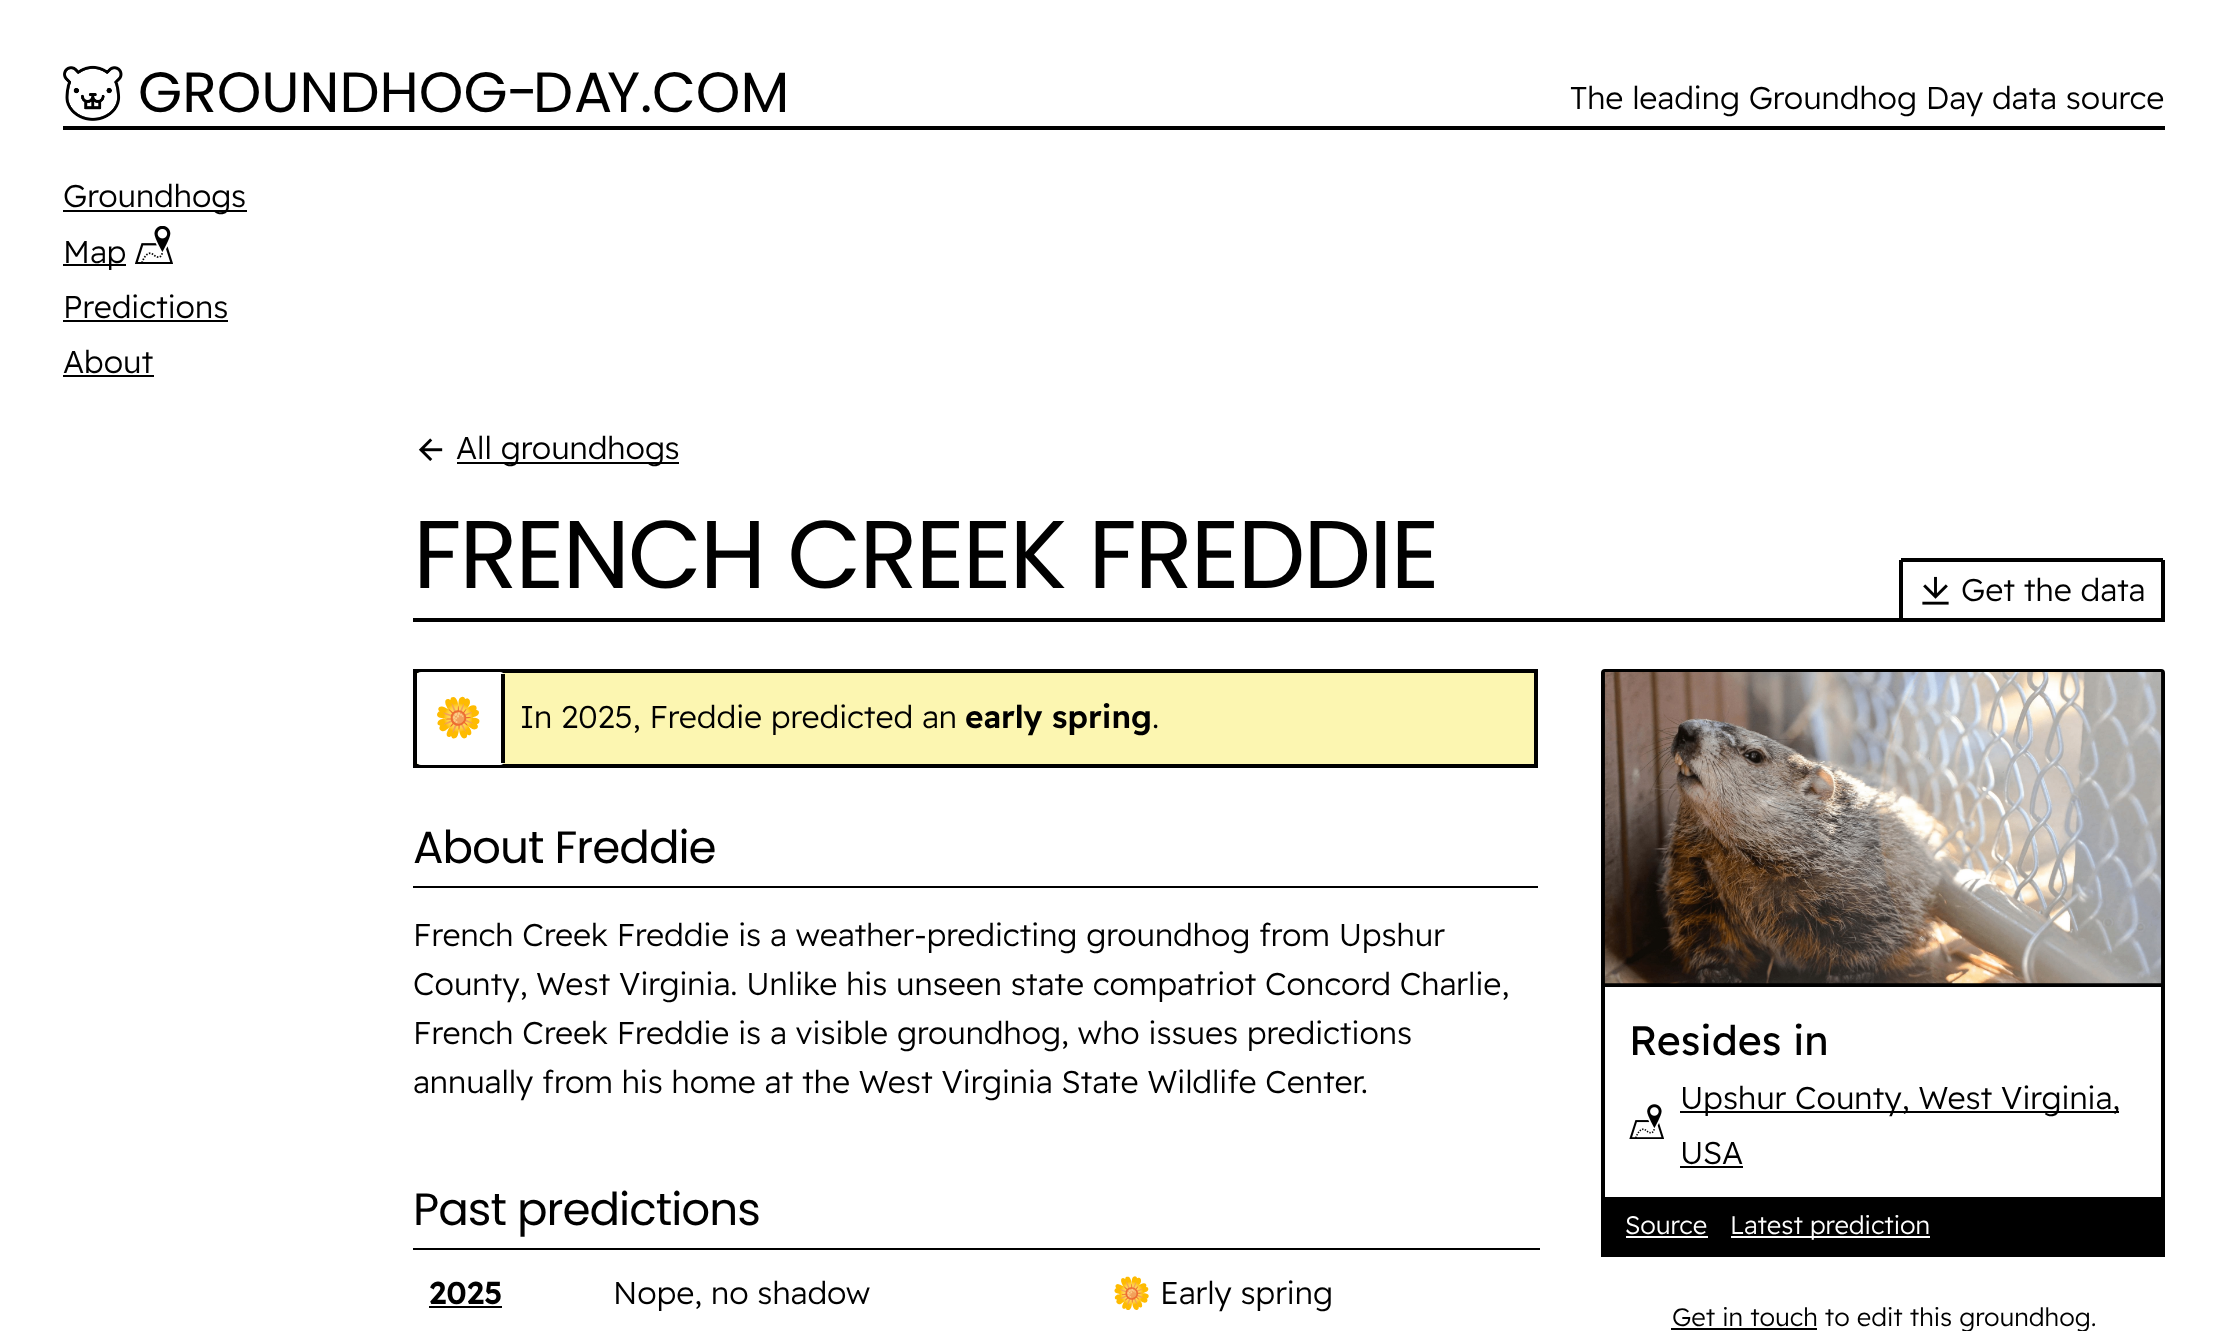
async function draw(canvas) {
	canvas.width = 2227;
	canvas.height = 1331;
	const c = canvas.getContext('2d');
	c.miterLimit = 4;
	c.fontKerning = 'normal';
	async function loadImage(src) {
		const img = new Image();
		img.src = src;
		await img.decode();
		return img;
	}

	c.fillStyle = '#fff';
	c.fillRect(0, 0, 2227, 1331);
	c.fillStyle = '#000';
	c.fillRect(63, 126, 2102, 4);
	c.drawImage(await loadImage('img1.png'), 63, 65, 60, 56);
	c.font = '56.75px Poppins';
	c.fillText('GROUNDHOG', 138, 112);
	c.letterSpacing = '-5px';
	c.fillText('-', 507, 112);
	c.letterSpacing = '0px';
	c.fillText('D', 533, 112);
	c.letterSpacing = '-5px';
	c.fillText('A', 574, 112);
	c.letterSpacing = '0px';
	c.fillText('Y.COM', 607, 112);
	c.font = '300 31.5px Readex Pro';
	c.fillText('The leading Groundhog Day data source', 1570, 109);
	c.fillRect(63, 210, 184, 2);
	c.fillText('Groundhogs', 63, 207);
	c.fillRect(63, 264, 63, 2);
	c.fillText('Map', 63, 263);
	c.drawImage(await loadImage('img2.png'), 135, 226, 38, 38);
	c.fillText('Predictions', 63, 318);
	c.fillRect(63, 320, 165, 2);
	c.fillText('About', 63, 373);
	c.fillRect(63, 375, 91, 2);
	c.fillRect(413, 618, 1752, 4);
	c.drawImage(await loadImage('img3.png'), 418, 438, 25, 23);
	c.fillRect(457, 462, 222, 2);
	c.fillText('All groundhogs', 456, 459);
	c.letterSpacing = '-2.25px';
	c.font = '96.1px Poppins';
	c.fillText('FRENCH CREEK FREDDIE', 413, 588);
	for (const [x, y, w, h, color] of [
		[1901, 558, 262, 4, '#000'],
		[2161, 560, 4, 58, '#000'],
		[1899, 560, 4, 58, '#000'],
	]) {
		c.fillStyle = color;
		c.fillRect(x, y, w, h);
	}
	c.drawImage(await loadImage('img4.png'), 1922, 576, 27, 29);
	c.letterSpacing = '0px';
	c.font = '300 31.5px Readex Pro';
	c.fillText('Get the data', 1961, 601);
	c.fillStyle = '#fcf6b1';
	c.beginPath();
	c.rect(415, 671, 1121, 95);
	c.fill();
	c.strokeStyle = '#000';
	c.lineWidth = 4;
	c.stroke();
	c.fillStyle = '#fff';
	c.beginPath();
	c.roundRect(417, 672, 87, 93, 4);
	c.fill();
	c.fillStyle = '#000';
	c.fillRect(501, 674, 4, 89);
	c.font = '39px Noto Color Emoji';
	c.fillText('🌼', 434, 731);
	c.font = '300 31.5px Readex Pro';
	c.fillText('In 2025, Freddie predicted an', 520, 728);
	c.font = '600 31.5px Readex Pro';
	c.fillText('early spring', 965, 728);
	c.font = '300 31.5px Readex Pro';
	c.fillText('.', 1152, 728);
	c.fillRect(413, 886, 1125, 2);
	c.letterSpacing = '-1px';
	c.font = '45.25px Poppins';
	c.fillText('About Freddie', 413, 863);
	c.letterSpacing = '0px';
	c.font = '300 31.5px Readex Pro';
	for (const [text, x, y] of [
		['French Creek Freddie is a weather-predicting groundhog from Upshur', 413, 946],
		['County, West Virginia. Unlike his unseen state compatriot Concord Charlie,', 413, 995],
		['French Creek Freddie is a visible groundhog, who issues predictions', 413, 1044],
		['annually from his home at the West Virginia State Wildlife Center.', 413, 1093],
	]) {
		c.fillText(text, x, y);
	}
	c.letterSpacing = '-1px';
	c.font = '45.25px Poppins';
	c.fillText('Past predictions', 413, 1225);
	c.letterSpacing = '0px';
	c.font = '600 31.5px Readex Pro';
	c.fillText('2025', 429, 1304);
	c.fillRect(429, 1306, 73, 2);
	c.font = '300 31.5px Readex Pro';
	c.fillText('Nope, no shadow', 613, 1304);
	c.fillRect(413, 1248, 1127, 2);
	c.font = '31.5px Noto Color Emoji';
	c.fillText('🌼', 1112, 1304);
	c.font = '300 31.5px Readex Pro';
	c.fillText('Early spring', 1160, 1304);
	c.beginPath();
	c.roundRect(1603, 671, 560, 314, [2, 2, 0, 0]);
	c.stroke();
	c.drawImage(await loadImage('img5.png'), 1604, 672, 558, 312);
	c.fillRect(2161, 987, 4, 210);
	c.fillRect(1601, 987, 4, 210);
	c.font = '41px Readex Pro';
	c.fillText('Resides in', 1629, 1055);
	c.drawImage(await loadImage('img6.png'), 1629, 1104, 35, 35);
	c.fillRect(1680, 1111, 439, 2);
	c.font = '300 31.5px Readex Pro';
	c.fillText('Upshur County, West Virginia,', 1680, 1109);
	c.fillText('USA', 1680, 1164);
	c.fillRect(1680, 1166, 63, 2);
	c.fillRect(1601, 1197, 564, 60);
	c.font = '300 25.25px Readex Pro';
	c.fillStyle = '#fff';
	c.fillText('Source', 1625, 1234);
	c.fillRect(1626, 1236, 82, 2);
	c.fillRect(1731, 1236, 199, 2);
	c.fillText('Latest prediction', 1730, 1234);
	c.fillStyle = '#000';
	c.fillRect(1671, 1328, 146, 2);
	c.fillText('Get in touch to edit this groundhog.', 1672, 1326);
}

draw(document.querySelector('canvas'));
